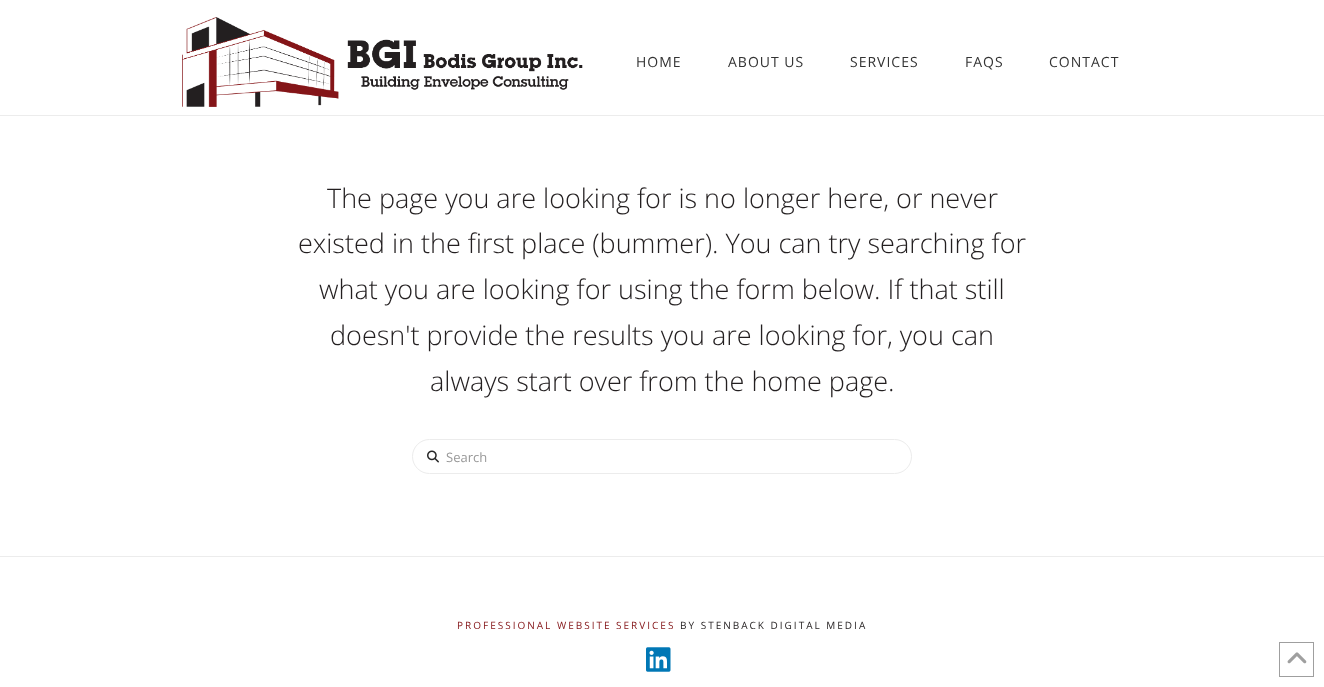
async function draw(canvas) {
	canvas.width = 1324;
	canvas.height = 687;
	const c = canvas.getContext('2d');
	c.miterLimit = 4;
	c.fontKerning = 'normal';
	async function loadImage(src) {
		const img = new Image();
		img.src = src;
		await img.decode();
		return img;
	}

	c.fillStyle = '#fff';
	c.fillRect(0, 0, 1324, 687);
	c.fillStyle = '#ececec';
	c.fillRect(0, 115, 1324, 1);
	c.drawImage(await loadImage('img1.png'), 182, 17, 401, 90);
	c.letterSpacing = '1px';
	c.font = '14px Open Sans';
	c.fillStyle = '#333';
	for (const [text, x, y] of [
		['HOME', 636, 67],
		['ABOUT US', 728, 67],
		['SERVICES', 850, 67],
		['FAQS', 965, 67],
		['CONTACT', 1049, 67],
	]) {
		c.fillText(text, x, y);
	}
	c.letterSpacing = '0px';
	c.font = '300 27px Open Sans';
	c.fillStyle = '#231f20';
	for (const [text, x, y] of [
		['The page you are looking for is no longer here, or never', 327, 208],
		['existed in the first place (bummer). You can try searching for', 298, 253],
		['what you are looking for using the form below. If that still', 319, 299],
		['doesn\'t provide the results you are looking for, you can', 330, 345],
		['always start over from the home page.', 430, 391],
	]) {
		c.fillText(text, x, y);
	}
	c.beginPath();
	c.roundRect(412.5, 439.5, 499, 34, 17);
	c.strokeStyle = '#ececec';
	c.stroke();
	c.drawImage(await loadImage('img2.png'), 427, 450, 12, 13);
	c.font = '13px Open Sans';
	c.fillStyle = '#999';
	c.fillText('Search', 446, 462);
	c.fillStyle = '#ececec';
	c.fillRect(0, 556, 1324, 1);
	c.letterSpacing = '2px';
	c.font = '10px Open Sans';
	c.fillStyle = '#841518';
	c.fillText('PROFESSIONAL WEBSITE SERVICES', 457, 629);
	c.fillStyle = '#231f20';
	c.fillText('BY STENBACK DIGITAL MEDIA', 680, 629);
	c.drawImage(await loadImage('img3.png'), 646, 647, 25, 25);
	c.strokeStyle = '#9f9f9f';
	c.strokeRect(1279.5, 642.5, 34, 34);
	c.drawImage(await loadImage('img4.png'), 1287, 652, 20, 12);
}

draw(document.querySelector('canvas'));
